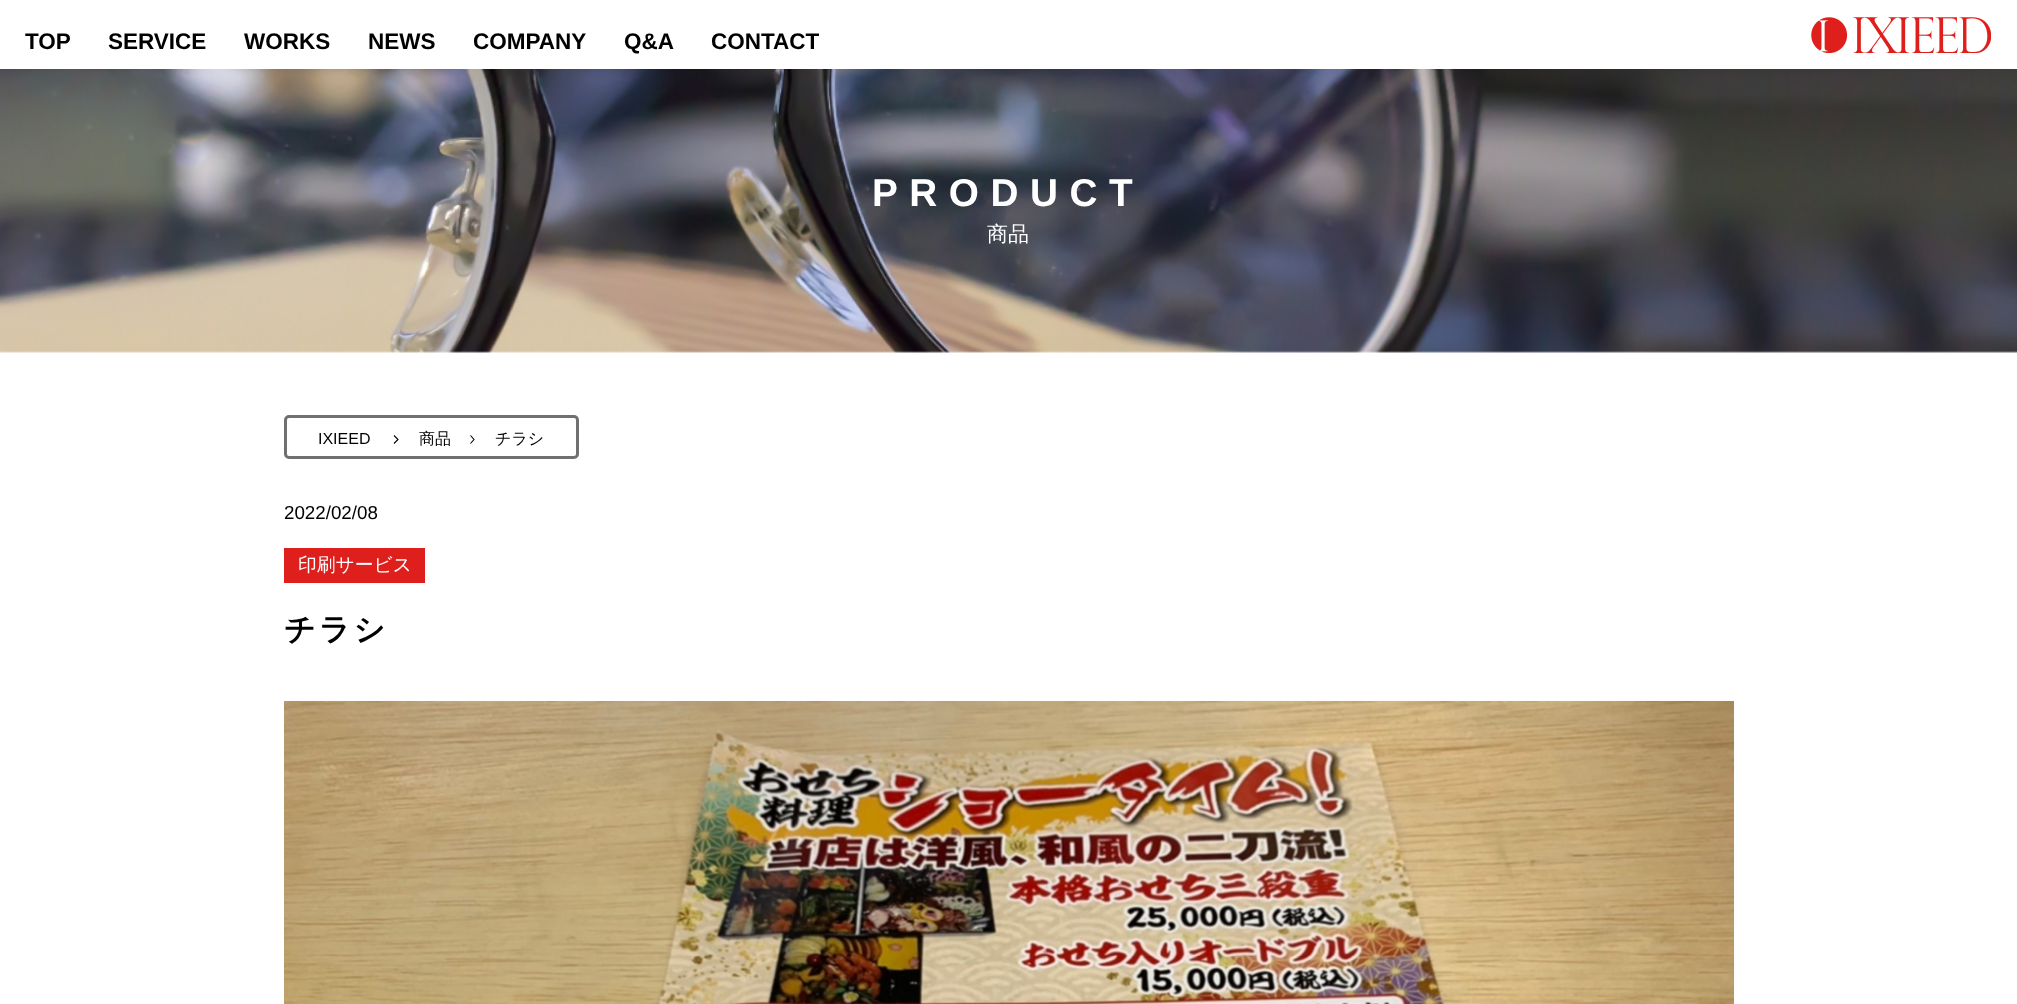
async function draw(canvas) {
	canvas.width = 2017;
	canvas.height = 1004;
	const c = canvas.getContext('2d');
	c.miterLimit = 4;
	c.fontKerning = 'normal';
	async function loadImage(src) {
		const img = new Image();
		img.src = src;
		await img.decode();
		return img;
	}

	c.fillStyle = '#fff';
	c.fillRect(0, 0, 2017, 1004);
	c.font = 'bold 22.5px Liberation Sans';
	c.fillStyle = '#000';
	for (const [text, x, y] of [
		['TOP', 25, 49],
		['SERVICE', 108, 49],
		['WORKS', 244, 49],
		['NEWS', 368, 49],
		['COMPANY', 473, 49],
		['Q&A', 624, 49],
		['CONTACT', 711, 49],
	]) {
		c.fillText(text, x, y);
	}
	c.drawImage(await loadImage('img1.png'), 1811, 17, 180, 36);
	c.drawImage(await loadImage('img2.png'), 0, 69, 2017, 284);
	c.letterSpacing = '11.5px';
	c.font = 'bold 38.75px Liberation Sans';
	c.fillStyle = '#fff';
	c.fillText('PRODUCT', 872, 206);
	c.letterSpacing = '0px';
	c.font = '500 21px WenQuanYi Zen Hei';
	c.fillText('商品', 987, 241);
	c.beginPath();
	c.roundRect(285.5, 416.5, 292, 41, 3.5);
	c.strokeStyle = '#707070';
	c.lineWidth = 3;
	c.stroke();
	c.font = '16px Liberation Sans';
	c.fillStyle = '#000';
	c.fillText('IXIEED', 318, 444);
	c.beginPath();
	c.moveTo(394, 443.5);
	c.lineTo(398, 439.5);
	c.lineTo(394, 435.5);
	c.strokeStyle = '#000';
	c.lineWidth = 1.1;
	c.stroke();
	c.font = '500 16px WenQuanYi Zen Hei';
	c.fillText('商品', 419, 444);
	c.beginPath();
	c.moveTo(470.5, 443.5);
	c.lineTo(474, 439.5);
	c.lineTo(470.5, 435.5);
	c.stroke();
	c.fillText('チラシ', 495, 444);
	c.font = '18.75px Liberation Sans';
	c.fillText('2022/02/08', 284, 519);
	c.fillStyle = '#df1f1c';
	c.fillRect(284, 548, 141, 35);
	c.font = '500 18.75px WenQuanYi Zen Hei';
	c.fillStyle = '#fff';
	c.fillText('印刷サービス', 298, 571);
	c.letterSpacing = '3px';
	c.font = 'bold 31px WenQuanYi Zen Hei';
	c.fillStyle = '#000';
	c.fillText('チラシ', 284, 640);
	c.drawImage(await loadImage('img3.png'), 284, 701, 1450, 303);
}

draw(document.querySelector('canvas'));
